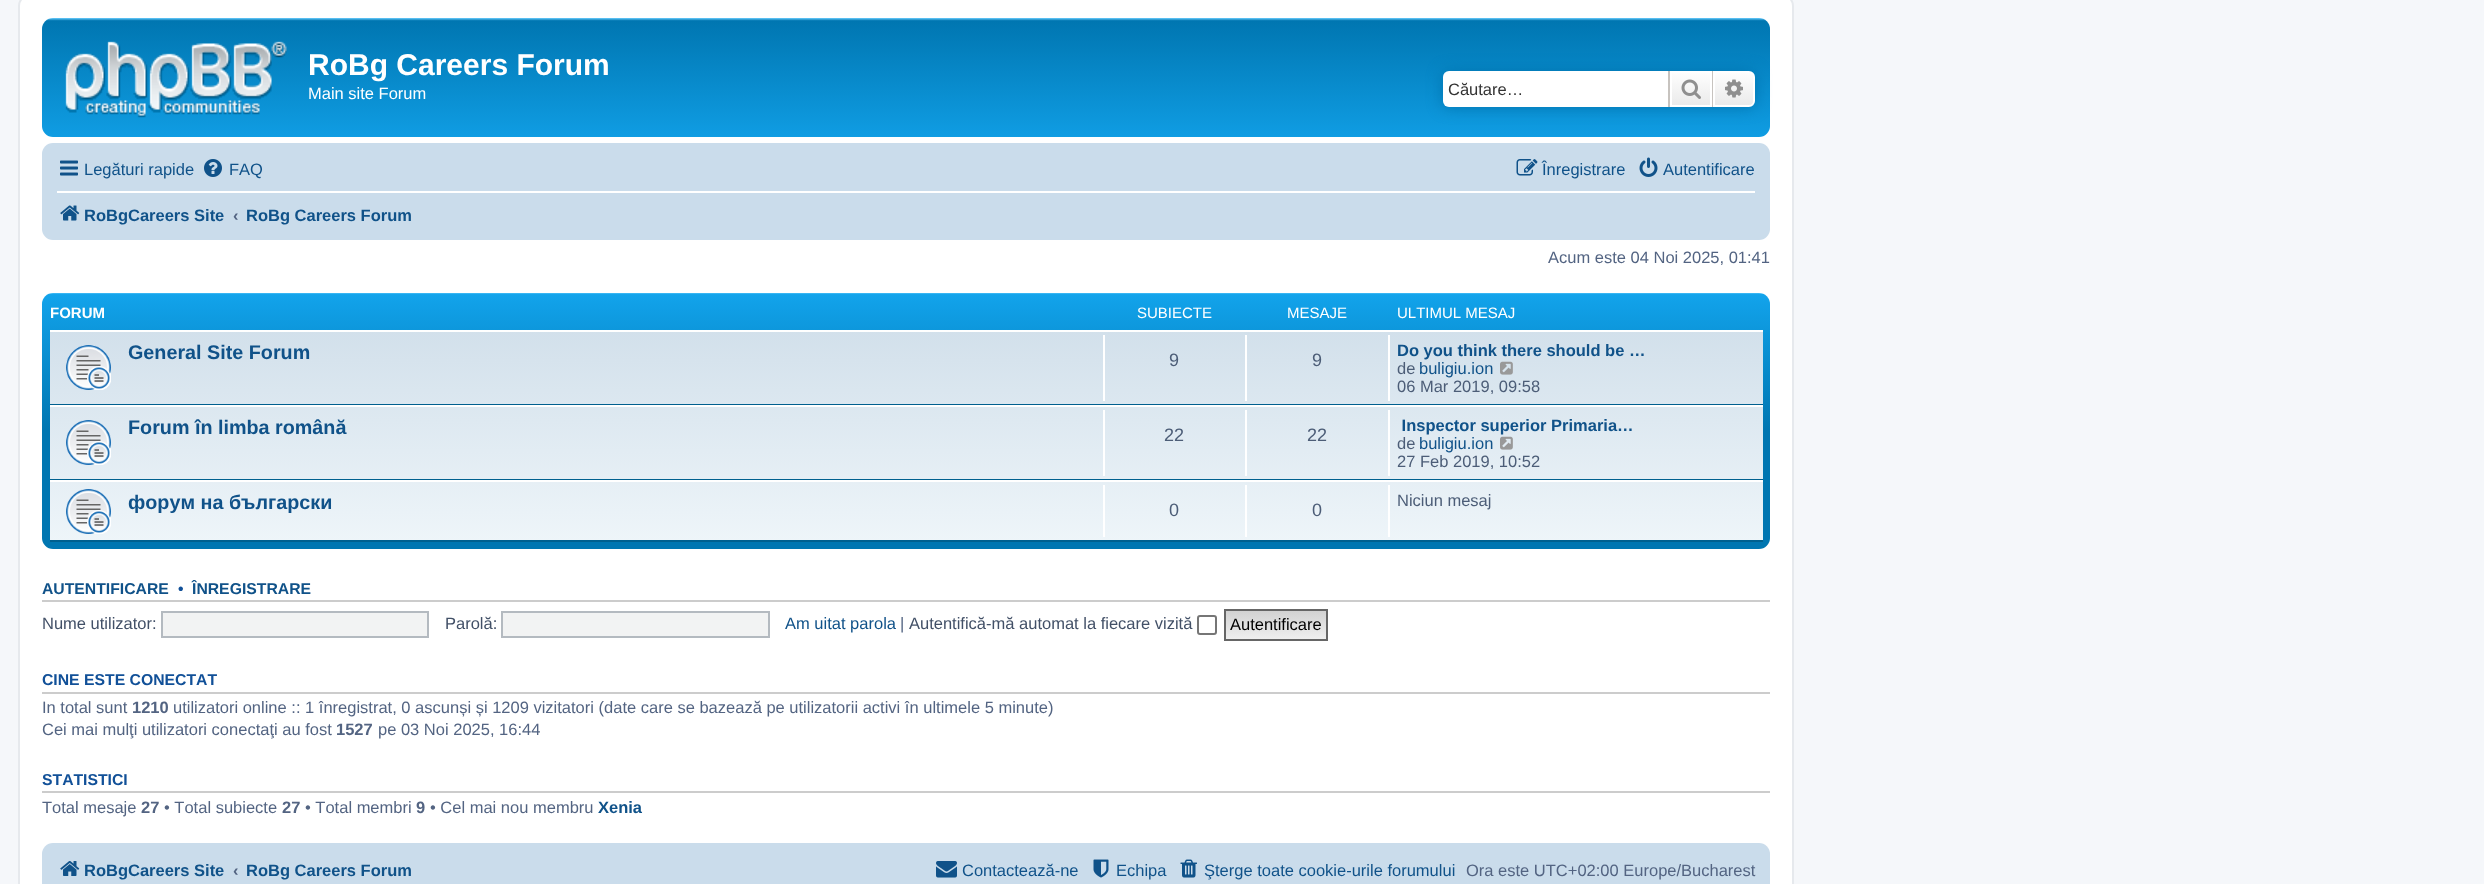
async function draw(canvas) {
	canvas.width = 2484;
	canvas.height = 884;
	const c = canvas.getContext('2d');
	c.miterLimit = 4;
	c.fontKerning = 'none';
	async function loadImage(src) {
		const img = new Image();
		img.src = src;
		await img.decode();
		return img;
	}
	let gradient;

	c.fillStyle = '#f5f7fa';
	c.fillRect(0, 0, 2484, 884);
	c.fillStyle = '#fff';
	c.beginPath();
	c.roundRect(19, -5, 1774, 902, 11);
	c.fill();
	c.strokeStyle = '#e6e9ed';
	c.lineWidth = 2;
	c.stroke();
	gradient = c.createLinearGradient(906, 18, 906, 156);
	gradient.addColorStop(0, '#6aceff');
	gradient.addColorStop(0.02, '#0076b1');
	gradient.addColorStop(1, '#12a3eb');
	c.fillStyle = gradient;
	c.beginPath();
	c.roundRect(42, 18, 1728, 119, 11);
	c.fill();
	c.drawImage(await loadImage('img1.png'), 65, 41, 222, 77);
	c.font = 'bold 30px Liberation Sans';
	c.fillStyle = '#fff';
	c.fillText('RoBg Careers Forum', 308, 75);
	c.font = '16.5px Liberation Sans';
	c.fillText('Main site Forum', 308, 99);
	c.fillStyle = '#0075b0';
	c.filter = 'blur(7.5px)';
	c.beginPath();
	c.roundRect(1443, 71, 312, 36, 6);
	c.fill();
	c.filter = 'none';
	c.fillStyle = '#fff';
	c.beginPath();
	c.roundRect(1443, 71, 225, 36, [6, 0, 0, 6]);
	c.fill();
	c.fillStyle = '#333';
	c.fillText('Căutare…', 1448, 95);
	gradient = c.createLinearGradient(1691, 71, 1691, 107);
	gradient.addColorStop(0, '#fff');
	gradient.addColorStop(1, '#e9e9e9');
	c.fillStyle = gradient;
	c.fillRect(1672, 73, 38, 32);
	c.strokeStyle = '#fff';
	c.strokeRect(1671, 72, 40, 34);
	c.fillStyle = '#c7c3bf';
	c.fillRect(1712, 71, 1, 36);
	c.fillRect(1668, 71, 2, 36);
	c.drawImage(await loadImage('img2.png'), 1681, 79, 20, 20);
	gradient = c.createLinearGradient(1734, 71, 1734, 107);
	gradient.addColorStop(0, '#fff');
	gradient.addColorStop(1, '#e9e9e9');
	c.fillStyle = gradient;
	c.beginPath();
	c.roundRect(1714, 72, 40, 34, [0, 5, 5, 0]);
	c.fill();
	c.stroke();
	c.drawImage(await loadImage('img3.png'), 1725, 79, 18, 19);
	c.fillStyle = '#cadceb';
	c.beginPath();
	c.roundRect(42, 143, 1728, 97, 11);
	c.fill();
	c.drawImage(await loadImage('img4.png'), 60, 160, 18, 16);
	c.fillStyle = '#105289';
	c.fillText('Legături rapide', 84, 175);
	c.drawImage(await loadImage('img5.png'), 204, 159, 18, 18);
	c.fillText('FAQ', 229, 175);
	c.drawImage(await loadImage('img6.png'), 1516, 159, 22, 17);
	c.fillText('Înregistrare', 1542, 175);
	c.drawImage(await loadImage('img7.png'), 1639, 157, 19, 20);
	c.fillText('Autentificare', 1663, 175);
	c.fillStyle = '#fff';
	c.fillRect(57, 191, 1698, 2);
	c.drawImage(await loadImage('img8.png'), 60, 205, 20, 16);
	c.font = 'bold 16.5px Liberation Sans';
	c.fillStyle = '#105289';
	c.fillText('RoBgCareers Site', 84, 221);
	c.fillStyle = '#536482';
	c.fillText('‹', 233, 221);
	c.fillStyle = '#105289';
	c.fillText('RoBg Careers Forum', 246, 221);
	c.font = '16.5px Liberation Sans';
	c.fillStyle = '#536482';
	c.fillText('Acum este 04 Noi 2025, 01:41', 1548, 263);
	gradient = c.createLinearGradient(906, 292, 906, 549);
	gradient.addColorStop(0, '#6aceff');
	gradient.addColorStop(0.01, '#12a3eb');
	gradient.addColorStop(0.54, '#0076b1');
	gradient.addColorStop(1, '#0076b1');
	c.fillStyle = gradient;
	c.beginPath();
	c.roundRect(42, 293, 1728, 256, 11);
	c.fill();
	c.font = 'bold 15px Liberation Sans';
	c.fillStyle = '#fff';
	c.fillText('FORUM', 50, 318);
	c.font = '15px Liberation Sans';
	for (const [text, x, y] of [
		['SUBIECTE', 1137, 318],
		['MESAJE', 1287, 318],
		['ULTIMUL MESAJ', 1397, 318],
	]) {
		c.fillText(text, x, y);
	}
	gradient = c.createLinearGradient(906, 330, 906, 542);
	gradient.addColorStop(0, '#d2e0eb');
	gradient.addColorStop(1, '#eef5f9');
	c.fillStyle = gradient;
	c.fillRect(50, 332, 1713, 208);
	c.fillStyle = '#fff';
	c.fillRect(50, 330, 1713, 2);
	c.fillStyle = '#00608f';
	c.fillRect(50, 404, 1713, 1);
	c.drawImage(await loadImage('img9.png'), 66, 345, 45, 45);
	c.font = 'bold 19.75px Liberation Sans';
	c.fillStyle = '#105289';
	c.fillText('General Site Forum', 128, 359);
	c.fillStyle = '#fff';
	c.fillRect(1103, 335, 2, 66);
	c.font = '18px Liberation Sans';
	c.fillStyle = '#4c5d77';
	c.fillText('9', 1169, 366);
	c.fillStyle = '#fff';
	c.fillRect(1245, 335, 2, 66);
	c.fillStyle = '#4c5d77';
	c.fillText('9', 1312, 366);
	c.fillStyle = '#fff';
	c.fillRect(1388, 335, 2, 66);
	c.font = 'bold 16.5px Liberation Sans';
	c.fillStyle = '#105289';
	c.fillText('Do you think there should be …', 1397, 356);
	c.font = '16.5px Liberation Sans';
	c.fillStyle = '#4c5d77';
	c.fillText('de', 1397, 374);
	c.fillStyle = '#105289';
	c.fillText('buligiu.ion', 1419, 374);
	c.drawImage(await loadImage('img10.png'), 1500, 361, 13, 14);
	c.fillStyle = '#4c5d77';
	c.fillText('06 Mar 2019, 09:58', 1397, 392);
	c.fillStyle = '#fff';
	c.fillRect(50, 405, 1713, 2);
	c.fillStyle = '#00608f';
	c.fillRect(50, 479, 1713, 1);
	c.drawImage(await loadImage('img11.png'), 66, 420, 45, 45);
	c.font = 'bold 19.75px Liberation Sans';
	c.fillStyle = '#105289';
	c.fillText('Forum în limba română', 128, 434);
	c.fillStyle = '#fff';
	c.fillRect(1103, 410, 2, 66);
	c.font = '18px Liberation Sans';
	c.fillStyle = '#4c5d77';
	c.fillText('22', 1164, 441);
	c.fillStyle = '#fff';
	c.fillRect(1245, 410, 2, 66);
	c.fillStyle = '#4c5d77';
	c.fillText('22', 1307, 441);
	c.fillStyle = '#fff';
	c.fillRect(1388, 410, 2, 66);
	c.font = 'bold 16.5px Liberation Sans';
	c.fillStyle = '#105289';
	c.fillText(' Inspector superior Primaria…', 1397, 431);
	c.font = '16.5px Liberation Sans';
	c.fillStyle = '#4c5d77';
	c.fillText('de', 1397, 449);
	c.fillStyle = '#105289';
	c.fillText('buligiu.ion', 1419, 449);
	c.drawImage(await loadImage('img12.png'), 1500, 436, 13, 14);
	c.fillStyle = '#4c5d77';
	c.fillText('27 Feb 2019, 10:52', 1397, 467);
	c.fillStyle = '#fff';
	c.fillRect(50, 480, 1713, 2);
	c.fillStyle = '#00608f';
	c.fillRect(50, 540, 1713, 2);
	c.drawImage(await loadImage('img13.png'), 66, 489, 45, 45);
	c.font = 'bold 19.75px Liberation Sans';
	c.fillStyle = '#105289';
	c.fillText('форум на български', 128, 509);
	c.fillStyle = '#fff';
	c.fillRect(1103, 485, 2, 52);
	c.font = '18px Liberation Sans';
	c.fillStyle = '#4c5d77';
	c.fillText('0', 1169, 516);
	c.fillStyle = '#fff';
	c.fillRect(1245, 485, 2, 52);
	c.fillStyle = '#4c5d77';
	c.fillText('0', 1312, 516);
	c.fillStyle = '#fff';
	c.fillRect(1388, 485, 2, 52);
	c.font = '16.5px Liberation Sans';
	c.fillStyle = '#4c5d77';
	c.fillText('Niciun mesaj', 1397, 506);
	c.fillStyle = '#ccc';
	c.fillRect(42, 600, 1728, 2);
	c.font = 'bold 15.75px Liberation Sans';
	c.fillStyle = '#105289';
	c.fillText('AUTENTIFICARE', 42, 594);
	c.fillStyle = '#115098';
	c.fillText('•', 178, 594);
	c.fillStyle = '#105289';
	c.fillText('ÎNREGISTRARE', 192, 594);
	c.font = '16.5px Liberation Sans';
	c.fillStyle = '#425067';
	c.fillText('Nume utilizator:', 42, 629);
	c.fillStyle = '#f2f3f3';
	c.beginPath();
	c.rect(162, 612, 266, 25);
	c.fill();
	c.strokeStyle = '#b4bac0';
	c.stroke();
	c.fillStyle = '#425067';
	c.fillText('Parolă:', 445, 629);
	c.fillStyle = '#f2f3f3';
	c.beginPath();
	c.rect(502, 612, 267, 25);
	c.fill();
	c.stroke();
	c.fillStyle = '#105289';
	c.fillText('Am uitat parola', 785, 629);
	c.fillStyle = '#536482';
	c.fillText('|', 900, 629);
	c.fillStyle = '#425067';
	c.fillText('Autentifică-mă automat la fiecare vizită', 909, 629);
	c.beginPath();
	c.roundRect(1198, 616, 18, 18, 2);
	c.strokeStyle = '#767676';
	c.stroke();
	gradient = c.createLinearGradient(1276, 611, 1276, 639);
	gradient.addColorStop(0, '#d2d2d2');
	gradient.addColorStop(1, '#efefef');
	c.fillStyle = gradient;
	c.fillRect(1226, 611, 100, 28);
	c.strokeStyle = '#666';
	c.strokeRect(1225, 610, 102, 30);
	c.fillStyle = '#000';
	c.fillText('Autentificare', 1230, 630);
	c.fillStyle = '#ccc';
	c.fillRect(42, 692, 1728, 2);
	c.font = 'bold 15.75px Liberation Sans';
	c.fillStyle = '#115098';
	c.fillText('CINE ESTE CONECTAT', 42, 685);
	c.font = '16.5px Liberation Sans';
	c.fillStyle = '#536482';
	c.fillText('In total sunt', 42, 713);
	c.font = 'bold 16.5px Liberation Sans';
	c.fillText('1210', 132, 713);
	c.font = '16.5px Liberation Sans';
	c.fillText('utilizatori online :: 1 înregistrat, 0 ascunși și 1209 vizitatori (date care se bazează pe utilizatorii activi în ultimele 5 minute)', 173, 713);
	c.fillText('Cei mai mulţi utilizatori conectaţi au fost', 42, 735);
	c.font = 'bold 16.5px Liberation Sans';
	c.fillText('1527', 336, 735);
	c.font = '16.5px Liberation Sans';
	c.fillText('pe 03 Noi 2025, 16:44', 378, 735);
	c.fillStyle = '#ccc';
	c.fillRect(42, 791, 1728, 2);
	c.font = 'bold 15.75px Liberation Sans';
	c.fillStyle = '#115098';
	c.fillText('STATISTICI', 42, 785);
	c.font = '16.5px Liberation Sans';
	c.fillStyle = '#536482';
	c.fillText('Total mesaje', 42, 813);
	c.font = 'bold 16.5px Liberation Sans';
	c.fillText('27', 141, 813);
	c.font = '16.5px Liberation Sans';
	c.fillText('• Total subiecte', 164, 813);
	c.font = 'bold 16.5px Liberation Sans';
	c.fillText('27', 282, 813);
	c.font = '16.5px Liberation Sans';
	c.fillText('• Total membri', 305, 813);
	c.font = 'bold 16.5px Liberation Sans';
	c.fillText('9', 416, 813);
	c.font = '16.5px Liberation Sans';
	c.fillText('• Cel mai nou membru', 430, 813);
	c.font = 'bold 16.5px Liberation Sans';
	c.fillStyle = '#105289';
	c.fillText('Xenia', 598, 813);
	c.fillStyle = '#cadceb';
	c.beginPath();
	c.roundRect(42, 843, 1728, 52, 11);
	c.fill();
	c.drawImage(await loadImage('img14.png'), 60, 861, 20, 15);
	c.fillStyle = '#105289';
	c.fillText('RoBgCareers Site', 84, 876);
	c.fillStyle = '#536482';
	c.fillText('‹', 233, 876);
	c.fillStyle = '#105289';
	c.fillText('RoBg Careers Forum', 246, 876);
	c.drawImage(await loadImage('img15.png'), 936, 861, 21, 17);
	c.font = '16.5px Liberation Sans';
	c.fillText('Contactează-ne', 962, 876);
	c.drawImage(await loadImage('img16.png'), 1093, 859, 16, 19);
	c.fillText('Echipa', 1116, 876);
	c.drawImage(await loadImage('img17.png'), 1180, 859, 17, 19);
	c.fillText('Şterge toate cookie-urile forumului', 1204, 876);
	c.fillStyle = '#536482';
	c.fillText('Ora este UTC+02:00 Europe/Bucharest', 1466, 876);
}

draw(document.querySelector('canvas'));
